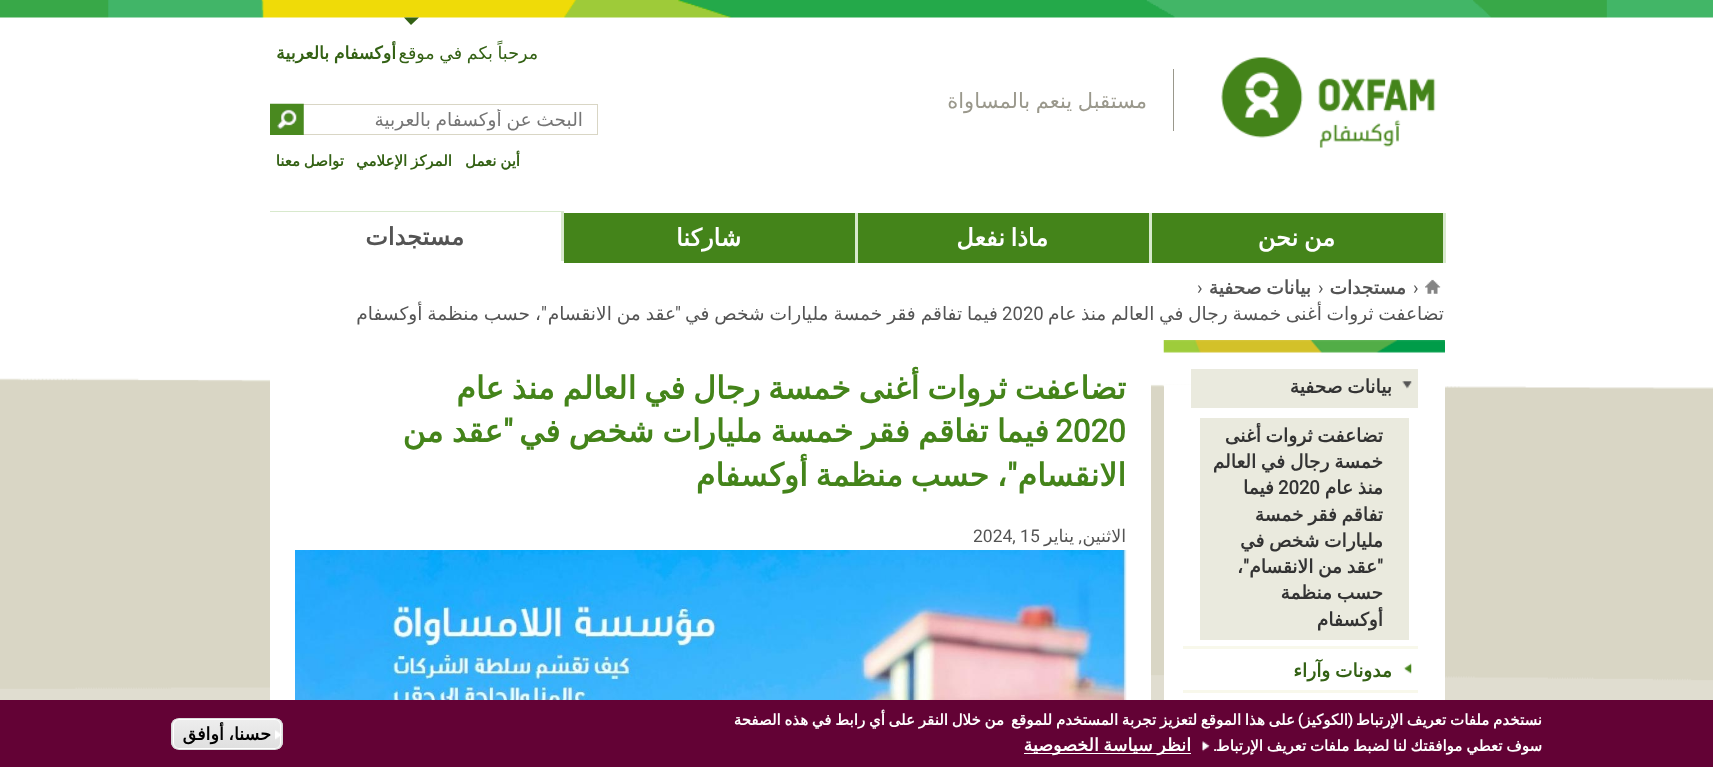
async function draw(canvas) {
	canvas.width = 1713;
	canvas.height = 767;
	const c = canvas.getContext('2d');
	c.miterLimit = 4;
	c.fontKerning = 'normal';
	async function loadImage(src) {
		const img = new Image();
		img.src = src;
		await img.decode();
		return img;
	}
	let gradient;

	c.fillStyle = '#fff';
	c.fillRect(0, 0, 1713, 767);
	c.drawImage(await loadImage('img1.png'), 0, 0, 1713, 18);
	c.fillStyle = '#336114';
	c.beginPath();
	c.moveTo(404, 17.5);
	c.lineTo(419, 17.5);
	c.lineTo(411, 25);
	c.closePath();
	c.fill();
	c.wordSpacing = '-1px';
	c.direction = 'rtl';
	c.font = '17.5px DejaVu Sans';
	c.fillText('مرحباً بكم في موقع', 538, 59);
	c.font = 'bold 17.5px DejaVu Sans';
	c.fillText('أوكسفام بالعربية', 396, 59);
	c.drawImage(await loadImage('img2.png'), 1221, 57, 215, 91);
	c.fillStyle = '#9a988c';
	c.fillRect(1173, 69, 1, 62);
	c.font = '21px DejaVu Sans';
	c.fillText('مستقبل ينعم بالمساواة', 1147, 108);
	c.strokeStyle = '#d9d6c5';
	c.strokeRect(270.5, 104.5, 327, 30);
	c.save();
	c.beginPath();
	c.rect(271, 109, 313, 22);
	c.clip();
	c.wordSpacing = '-1.25px';
	c.font = '18.6px DejaVu Sans';
	c.fillStyle = '#757575';
	c.fillText('البحث عن أوكسفام بالعربية', 583, 126);
	c.restore();
	c.drawImage(await loadImage('img3.png'), 270, 103, 34, 32);
	c.font = 'bold 15px DejaVu Sans';
	c.fillStyle = '#336114';
	for (const [text, x, y] of [
		['أين نعمل', 520, 166],
		['المركز الإعلامي', 452, 166],
		['تواصل معنا', 344, 166],
	]) {
		c.fillText(text, x, y);
	}
	c.fillStyle = '#44841a';
	c.fillRect(1152, 213, 291, 50);
	c.fillStyle = '#d8e9cd';
	c.fillRect(1443, 213, 3, 50);
	c.wordSpacing = '-2px';
	c.font = 'bold 24px DejaVu Sans';
	c.fillStyle = '#fff';
	c.fillText('من نحن', 1335, 246);
	c.fillStyle = '#44841a';
	c.fillRect(858, 213, 291, 50);
	c.fillStyle = '#d8e9cd';
	c.fillRect(1149, 213, 3, 50);
	c.fillStyle = '#fff';
	c.fillText('ماذا نفعل', 1048, 246);
	c.fillStyle = '#44841a';
	c.fillRect(564, 213, 291, 50);
	c.fillStyle = '#d8e9cd';
	c.fillRect(855, 213, 3, 50);
	c.wordSpacing = '0px';
	c.fillStyle = '#fff';
	c.fillText('شاركنا', 741, 246);
	c.fillStyle = '#d8e9cd';
	c.fillRect(270, 211, 294, 1);
	c.fillRect(561, 211, 3, 50);
	c.fillStyle = '#545454';
	c.fillText('مستجدات', 464, 245);
	c.drawImage(await loadImage('img4.png'), 1425, 279, 16, 15);
	c.direction = 'ltr';
	c.font = '18.6px Roboto';
	c.fillText('›', 1413, 294);
	c.direction = 'rtl';
	c.font = 'bold 18.6px DejaVu Sans';
	c.fillText('مستجدات', 1406, 294);
	c.direction = 'ltr';
	c.font = '18.6px Roboto';
	c.fillText('›', 1318, 294);
	c.wordSpacing = '-1.25px';
	c.direction = 'rtl';
	c.font = 'bold 18.6px DejaVu Sans';
	c.fillText('بيانات صحفية', 1311, 294);
	c.wordSpacing = '0px';
	c.direction = 'ltr';
	c.font = '18.6px Roboto';
	c.fillText('›', 1197, 294);
	c.save();
	c.beginPath();
	c.rect(270, 275, 1175, 53);
	c.clip();
	c.wordSpacing = '-1.25px';
	c.direction = 'rtl';
	c.font = '18.6px DejaVu Sans';
	c.fillText('تضاعفت ثروات أغنى خمسة رجال في العالم منذ عام', 1444, 320);
	c.restore();
	c.wordSpacing = '-1px';
	c.direction = 'rtl';
	c.font = '18.6px DejaVu Sans';
	c.fillText('فيما تفاقم فقر خمسة مليارات شخص في', 998, 320);
	c.wordSpacing = '0px';
	c.direction = 'ltr';
	c.font = '18.6px Roboto';
	c.fillText('2020', 1002, 320);
	c.direction = 'rtl';
	c.fillText('"', 681, 320);
	c.wordSpacing = '-1px';
	c.font = '18.6px DejaVu Sans';
	c.fillText('عقد من الانقسام', 676, 320);
	c.fillText('، حسب منظمة أوكسفام', 541, 320);
	c.wordSpacing = '0px';
	c.font = '18.6px Roboto';
	c.fillText('"', 547, 320);
	c.drawImage(await loadImage('img5.png'), 0, 340, 1713, 360);
	c.fillStyle = '#fff';
	c.fillRect(1164, 385, 281, 315);
	c.drawImage(await loadImage('img6.png'), 1163, 340, 282, 13);
	c.fillStyle = '#f8f8eb';
	c.fillRect(1183, 646, 235, 3);
	c.fillStyle = '#eaeade';
	c.fillRect(1191, 369, 227, 39);
	c.drawImage(await loadImage('img7.png'), 1402, 381, 10, 8);
	c.wordSpacing = '-1.25px';
	c.font = 'bold 18.6px DejaVu Sans';
	c.fillStyle = '#333';
	c.fillText('بيانات صحفية', 1392, 393);
	c.fillStyle = '#eaeade';
	c.fillRect(1200, 418, 209, 222);
	c.fillStyle = '#333';
	for (const [text, x, y] of [
		['تضاعفت ثروات أغنى', 1383, 442],
		['خمسة رجال في العالم', 1383, 468],
		['منذ عام', 1383, 494],
	]) {
		c.fillText(text, x, y);
	}
	c.wordSpacing = '0px';
	c.direction = 'ltr';
	c.font = 'bold 18.6px Roboto';
	c.fillText('2020', 1278, 494);
	c.direction = 'rtl';
	c.font = 'bold 18.6px DejaVu Sans';
	c.fillText('فيما', 1274, 494);
	c.wordSpacing = '-1.25px';
	c.fillText('تفاقم فقر خمسة', 1383, 521);
	c.fillText('مليارات شخص في', 1383, 547);
	c.wordSpacing = '0px';
	c.font = 'bold 18.6px Roboto';
	c.fillText('"', 1383, 573);
	c.wordSpacing = '-1.25px';
	c.font = 'bold 18.6px DejaVu Sans';
	c.fillText('عقد من الانقسام', 1377, 573);
	c.wordSpacing = '0px';
	c.font = 'bold 18.6px Roboto';
	c.fillText('"', 1249, 573);
	c.font = 'bold 18.6px DejaVu Sans';
	c.fillText('،', 1243, 573);
	c.wordSpacing = '-1.25px';
	c.fillText('حسب منظمة', 1383, 599);
	c.wordSpacing = '0px';
	c.fillText('أوكسفام', 1383, 626);
	c.fillStyle = '#f8f8eb';
	c.fillRect(1183, 690, 235, 3);
	c.drawImage(await loadImage('img8.png'), 1403, 663, 9, 11);
	c.wordSpacing = '-1.25px';
	c.fillStyle = '#336114';
	c.fillText('مدونات وآراء', 1392, 677);
	c.fillStyle = '#fff';
	c.fillRect(270, 379, 881, 321);
	c.wordSpacing = '-2.25px';
	c.font = 'bold 31.5px DejaVu Sans';
	c.fillStyle = '#44841a';
	c.fillText('تضاعفت ثروات أغنى خمسة رجال في العالم منذ عام', 1126, 399);
	c.wordSpacing = '-1.75px';
	c.fillText('فيما تفاقم فقر خمسة مليارات شخص في', 1049, 442);
	c.wordSpacing = '0px';
	c.direction = 'ltr';
	c.font = 'bold 31.5px Roboto';
	c.fillText('2020', 1055, 442);
	c.direction = 'rtl';
	c.fillText('"', 513, 442);
	c.wordSpacing = '-1.75px';
	c.font = 'bold 31.5px DejaVu Sans';
	c.fillText('عقد من', 503, 442);
	c.wordSpacing = '0px';
	c.fillText('الانقسام', 1126, 486);
	c.wordSpacing = '-2.25px';
	c.fillText('، حسب منظمة أوكسفام', 1007, 486);
	c.wordSpacing = '0px';
	c.font = 'bold 31.5px Roboto';
	c.fillText('"', 1017, 486);
	c.font = '17.5px DejaVu Sans';
	c.fillStyle = '#545454';
	c.fillText('الاثنين', 1126, 542);
	c.font = '17.5px Roboto';
	c.fillText(',', 1082, 542);
	c.font = '17.5px DejaVu Sans';
	c.fillText('يناير', 1074, 542);
	c.direction = 'ltr';
	c.font = '17.5px Roboto';
	c.fillText('2024, 15', 973, 542);
	c.drawImage(await loadImage('img9.png'), 295, 550, 832, 150);
	c.fillStyle = '#630235';
	c.fillRect(0, 700, 1713, 67);
	c.wordSpacing = '-1px';
	c.direction = 'rtl';
	c.font = 'bold 15px DejaVu Sans';
	c.fillStyle = '#fff';
	c.fillText('نستخدم ملفات تعريف الإرتباط', 1542, 725);
	c.wordSpacing = '0px';
	c.font = 'bold 15px Roboto';
	c.fillText('(', 1353, 725);
	c.wordSpacing = '-1px';
	c.font = 'bold 15px DejaVu Sans';
	c.fillText('على هذا الموقع لتعزيز تجربة المستخدم للموقع', 1295, 725);
	c.wordSpacing = '0px';
	c.font = 'bold 15px Roboto';
	c.fillText(')', 1303, 725);
	c.font = 'bold 15px DejaVu Sans';
	c.fillText('الكوكيز', 1348, 725);
	c.wordSpacing = '-1px';
	c.fillText('من خلال النقر على أي رابط في هذه الصفحة', 1004, 725);
	c.fillText('سوف تعطي موافقتك لنا لضبط ملفات تعريف الإرتباط', 1542, 751);
	c.wordSpacing = '0px';
	c.font = 'bold 15px Roboto';
	c.fillText('.', 1217, 751);
	c.drawImage(await loadImage('img10.png'), 1202, 741, 8, 11);
	c.fillRect(1024, 753, 167, 1);
	c.wordSpacing = '-1px';
	c.font = 'bold 17.5px DejaVu Sans';
	c.fillText('انظر سياسة الخصوصية', 1191, 751);
	c.save();
	c.beginPath();
	c.roundRect(171, 718, 112, 32, 8);
	c.clip();
	gradient = c.createLinearGradient(227, 719, 227, 749);
	gradient.addColorStop(0.05, '#ededed');
	gradient.addColorStop(1, '#dfdfdf');
	c.fillStyle = gradient;
	c.fillRect(171, 719, 112, 30);
	c.restore();
	c.beginPath();
	c.roundRect(173.5, 719.5, 107, 29, 5.5);
	c.strokeStyle = '#fff';
	c.stroke();
	c.beginPath();
	c.roundRect(171.5, 718.5, 111, 31, 7.5);
	c.strokeStyle = '#dcdcdc';
	c.stroke();
	c.drawImage(await loadImage('img11.png'), 275, 730, 7, 10);
	c.fillStyle = '#000';
	c.fillText('حسنا، أوافق', 271, 740);
}

draw(document.querySelector('canvas'));
